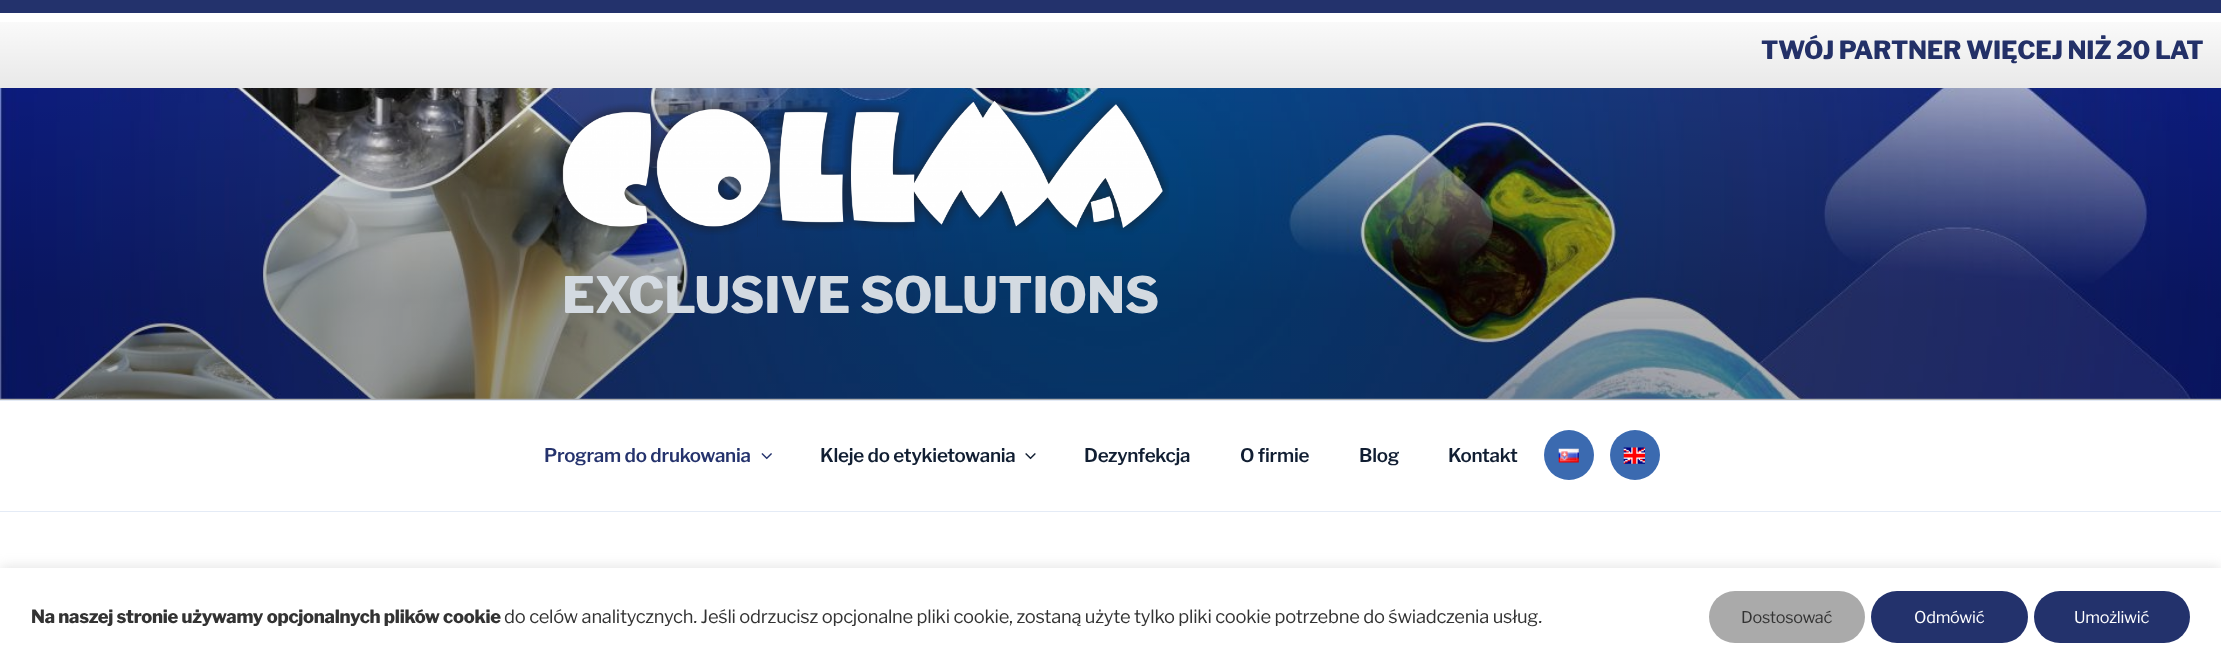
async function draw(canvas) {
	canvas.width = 2221;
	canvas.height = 666;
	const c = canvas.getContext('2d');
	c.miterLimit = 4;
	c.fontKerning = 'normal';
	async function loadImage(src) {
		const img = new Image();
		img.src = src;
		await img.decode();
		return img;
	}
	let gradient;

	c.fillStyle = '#fff';
	c.fillRect(0, 0, 2221, 666);
	c.fillStyle = '#23326c';
	c.fillRect(0, 0, 2221, 13);
	c.letterSpacing = '-0.25px';
	c.font = '100 25px Libre Franklin';
	c.fillStyle = '#25336d';
	c.fillText('TWÓJ PARTNER WIĘCEJ NIŻ 20 LAT', 1761, 59);
	c.fillStyle = '#f7f9fc';
	c.fillRect(0, 398, 2221, 2);
	c.drawImage(await loadImage('img1.png'), 0, 88, 2221, 311);
	gradient = c.createLinearGradient(1111, 0, 1111, 400);
	gradient.addColorStop(0, '#00000000');
	gradient.addColorStop(0.75, '#0000004d');
	gradient.addColorStop(1, '#0000004d');
	c.fillStyle = gradient;
	c.fillRect(0, 22, 2221, 378);
	c.drawImage(await loadImage('img2.png'), 556, 97, 613, 140);
	c.font = '100 50px Libre Franklin';
	c.fillStyle = '#d3dae1';
	c.fillText('EXCLUSIVE SOLUTIONS', 562, 313);
	c.fillStyle = '#e4ebf6';
	c.fillRect(0, 400, 2221, 1);
	c.fillRect(0, 511, 2221, 1);
	c.font = '100 18.75px "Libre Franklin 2"';
	c.fillStyle = '#25336d';
	c.fillText('Program do drukowania', 544, 462);
	c.drawImage(await loadImage('img3.png'), 761, 453, 11, 7);
	c.fillStyle = '#111e32';
	c.fillText('Kleje do etykietowania', 820, 462);
	c.drawImage(await loadImage('img4.png'), 1025, 453, 11, 7);
	for (const [text, x, y] of [
		['Dezynfekcja', 1084, 462],
		['O firmie', 1240, 462],
		['Blog', 1359, 462],
		['Kontakt', 1448, 462],
	]) {
		c.fillText(text, x, y);
	}
	c.fillStyle = '#3b6ab0';
	c.beginPath();
	c.arc(1569, 455, 25, 0, 2 * Math.PI);
	c.fill();
	c.drawImage(await loadImage('img5.png'), 1558, 448, 21, 15);
	c.beginPath();
	c.arc(1635, 455, 25, 0, 2 * Math.PI);
	c.fill();
	c.drawImage(await loadImage('img6.png'), 1623, 447, 22, 17);
	c.fillStyle = '#acabab4d';
	c.filter = 'blur(6px)';
	c.beginPath();
	c.rect(0, 566, 2221, 99);
	c.fill();
	c.filter = 'none';
	c.fillStyle = '#fff';
	c.fillRect(0, 568, 2221, 98);
	c.font = '100 18.33px Libre Franklin';
	c.fillStyle = '#333';
	c.fillText('Na naszej stronie używamy opcjonalnych plików cookie', 31, 623);
	c.font = '100 18.33px "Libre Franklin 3"';
	c.fillText('do celów analitycznych. Jeśli odrzucisz opcjonalne pliki cookie, zostaną użyte tylko pliki cookie potrzebne do świadczenia usług.', 504, 623);
	c.fillStyle = '#aaa';
	c.beginPath();
	c.roundRect(1709, 591, 156, 52, 26);
	c.fill();
	c.font = '100 16.25px "Libre Franklin 3"';
	c.fillStyle = '#333';
	c.fillText('Dostosować', 1741, 623);
	c.fillStyle = '#23326c';
	c.beginPath();
	c.roundRect(1871, 591, 157, 52, 26);
	c.fill();
	c.fillStyle = '#fff';
	c.fillText('Odmówić', 1914, 623);
	c.fillStyle = '#23326c';
	c.beginPath();
	c.roundRect(2034, 591, 156, 52, 26);
	c.fill();
	c.fillStyle = '#fff';
	c.fillText('Umożliwić', 2074, 623);
}

draw(document.querySelector('canvas'));
